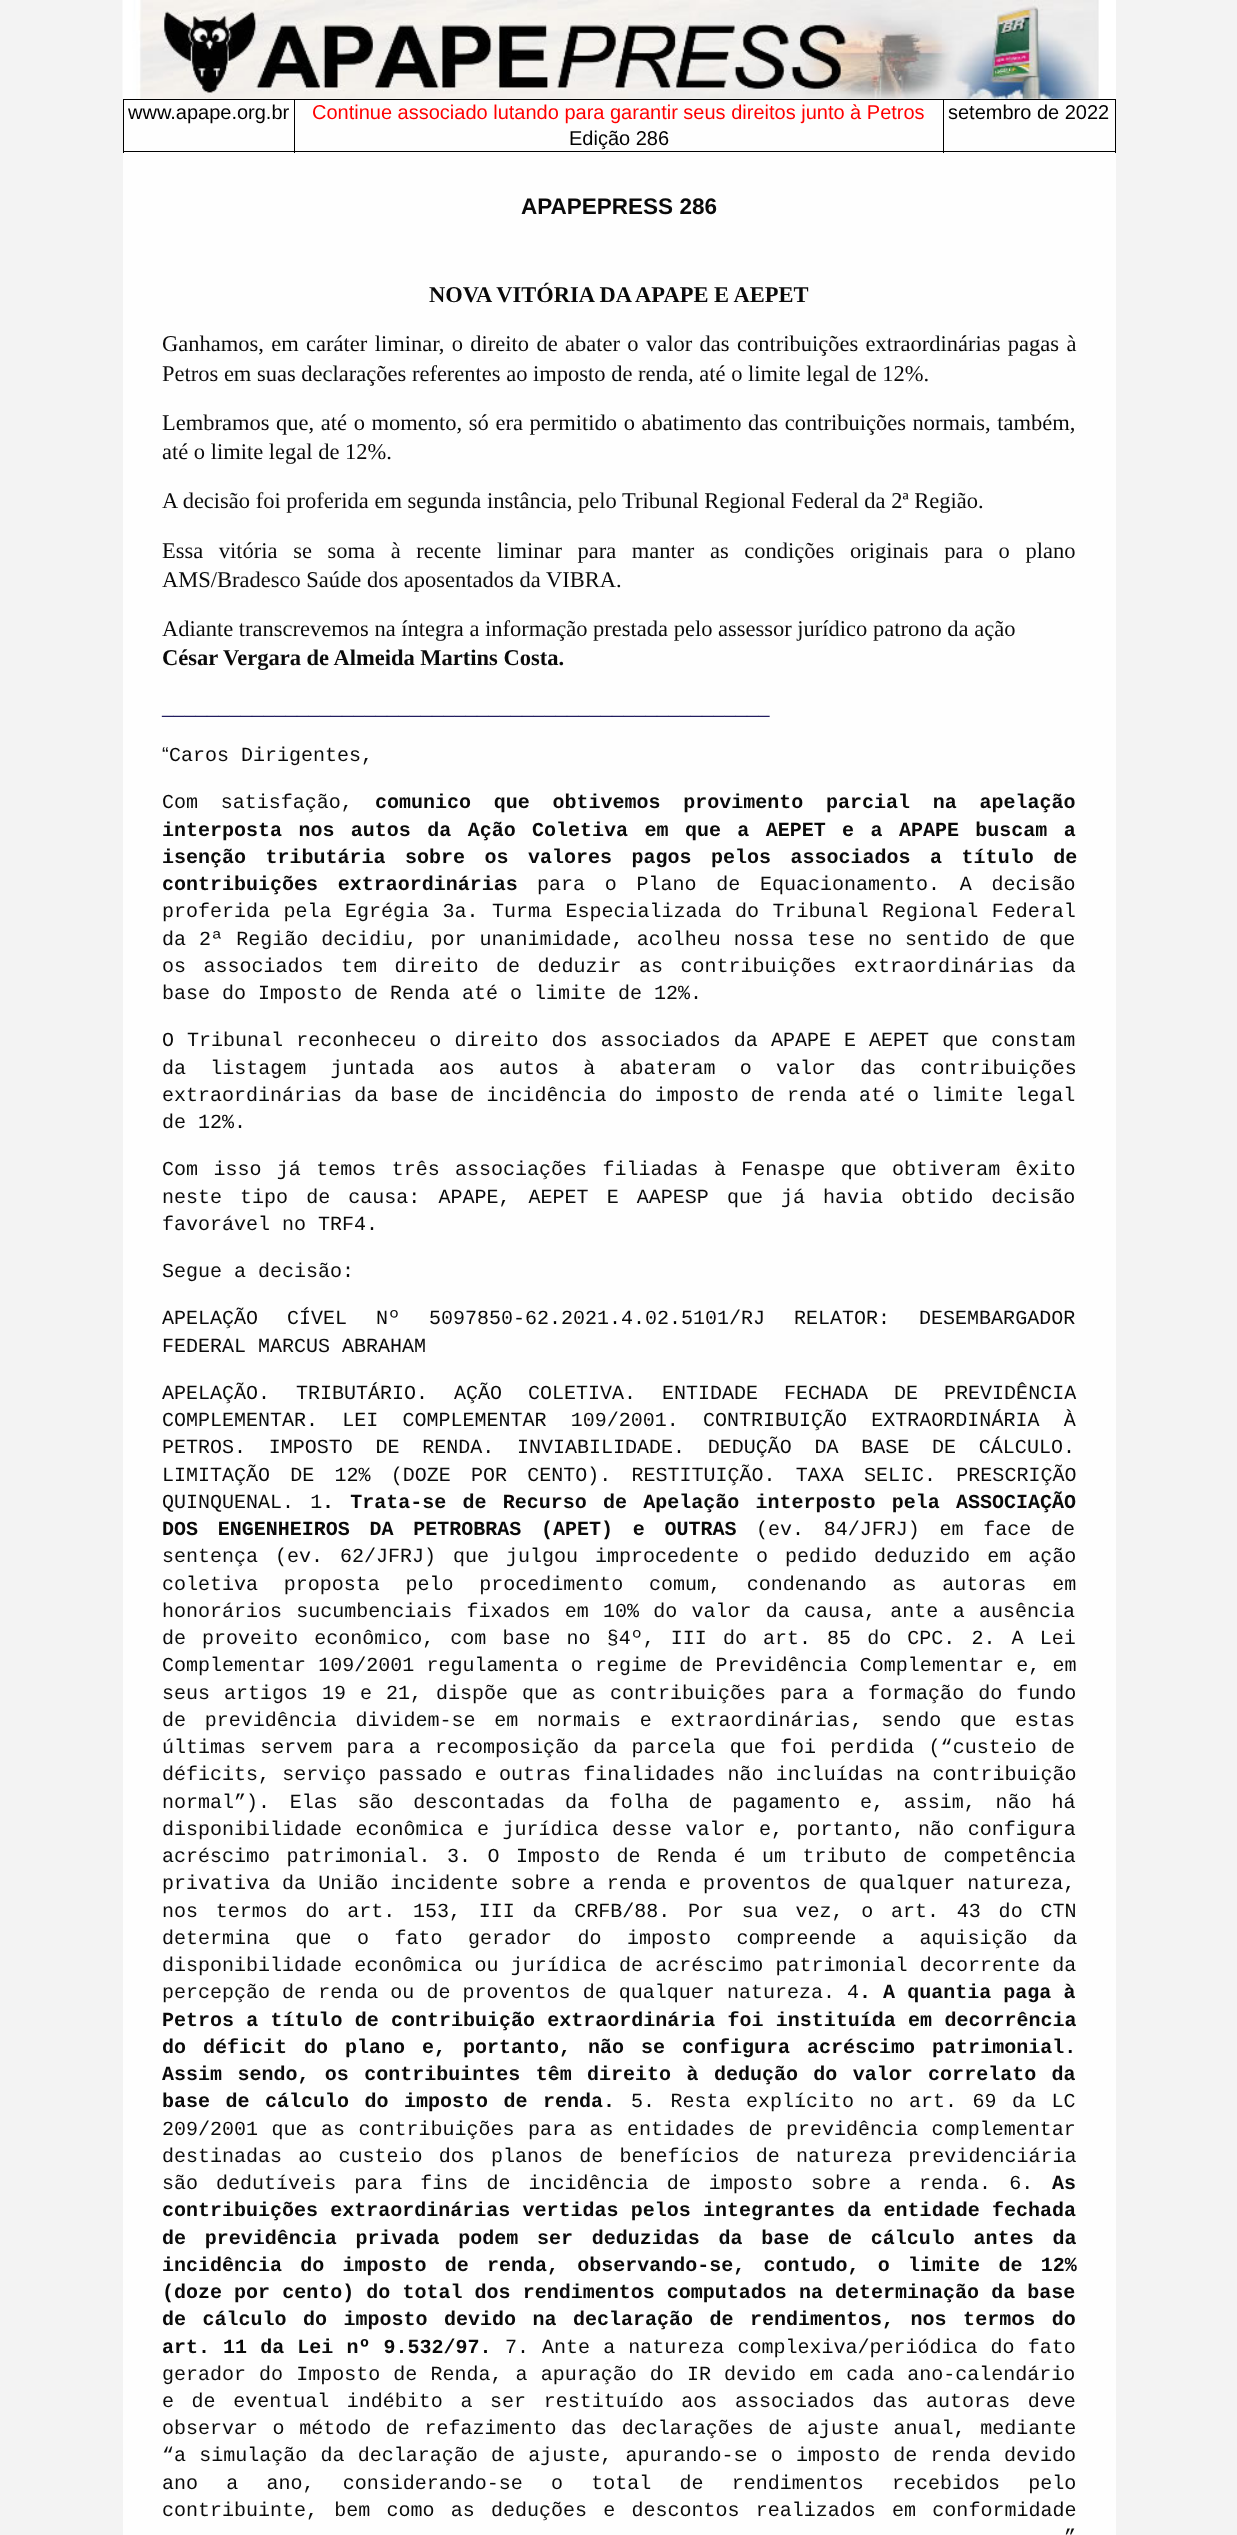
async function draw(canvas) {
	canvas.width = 1237;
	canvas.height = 2535;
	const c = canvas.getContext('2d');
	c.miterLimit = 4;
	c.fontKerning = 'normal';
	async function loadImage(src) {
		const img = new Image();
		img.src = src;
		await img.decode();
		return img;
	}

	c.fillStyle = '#f3f3f3';
	c.fillRect(0, 0, 1237, 2535);
	c.fillStyle = '#fff';
	c.fillRect(123, 0, 993, 99);
	c.drawImage(await loadImage('img1.png'), 122, 0, 977, 99);
	for (const [x, y, w, h, color] of [
		[123, 100, 993, 2435, '#fefefe'],
		[943, 99, 173, 1, '#000'],
		[1115, 99, 1, 54, '#000'],
		[943, 151, 173, 1, '#000'],
		[943, 99, 1, 54, '#000'],
		[294, 99, 650, 1, '#000'],
		[294, 151, 650, 1, '#000'],
		[294, 99, 1, 54, '#000'],
		[123, 99, 172, 1, '#000'],
		[123, 151, 172, 1, '#000'],
		[123, 99, 1, 54, '#000'],
	]) {
		c.fillStyle = color;
		c.fillRect(x, y, w, h);
	}
	c.font = '20px Liberation Sans';
	c.fillText('www.apape.org.br', 128, 119);
	c.fillStyle = '#f00';
	c.fillText('Continue associado lutando para garantir seus direitos junto à Petros', 312, 119);
	c.fillStyle = '#000';
	c.fillText('Edição 286', 569, 145);
	c.fillText('setembro de 2022', 948, 119);
	c.font = 'bold 22.5px Liberation Sans';
	c.fillStyle = '#0a0a0a';
	c.fillText('APAPEPRESS 286', 521, 214);
	c.font = 'bold 22.5px Liberation Serif';
	c.fillText('NOVA VITÓRIA DA APAPE E AEPET', 429, 302);
	c.wordSpacing = '1.75px';
	c.font = '22.5px Liberation Serif';
	c.fillText('Ganhamos, em caráter liminar, o direito de', 162, 351);
	c.fillText('abater o valor das contribuições extraordinárias pagas à', 565, 351);
	c.wordSpacing = '0px';
	c.fillText('Petros em suas declarações referentes ao imposto de renda, até o limite legal de 12%.', 162, 381);
	c.wordSpacing = '1px';
	c.fillText('Lembramos que, até o momento, só era permitido o abatimento das contribuições normais, também,', 162, 430);
	c.wordSpacing = '0px';
	c.fillText('até o limite legal de 12%.', 162, 459);
	c.fillText('A decisão foi proferida em segunda instância, pelo Tribunal Regional Federal da 2ª Região.', 162, 508);
	c.wordSpacing = '10px';
	c.fillText('Essa vitória se soma à recente liminar para manter as condições originais para o plano', 162, 558);
	c.wordSpacing = '0px';
	c.fillText('AMS/Bradesco Saúde dos aposentados da VIBRA.', 162, 587);
	c.fillText('Adiante transcrevemos na íntegra a informação prestada pelo assessor jurídico patrono da ação', 162, 636);
	c.font = 'bold 22.5px Liberation Serif';
	c.fillText('César Vergara de Almeida Martins Costa.', 162, 665);
	c.font = '22.5px Liberation Serif';
	c.fillStyle = '#05014b';
	c.fillText('______________________________________________________', 162, 714);
	c.font = '20px Liberation Sans';
	c.fillStyle = '#0a0a0a';
	c.fillText('“', 162, 761);
	c.font = '20px Liberation Mono';
	c.fillText('Caros Dirigentes,', 169, 761);
	c.wordSpacing = '10.75px';
	c.fillText('Com satisfação,', 162, 808);
	c.font = 'bold 20px Liberation Mono';
	c.fillText('comunico que obtivemos provimento parcial na apelação', 375, 808);
	c.wordSpacing = '4.4px';
	c.fillText('interposta nos autos da Ação Coletiva em que a AEPET e a APAPE buscam a', 162, 836);
	c.wordSpacing = '7.5px';
	c.fillText('isenção tributária sobre os valores pagos pelos associados a título de', 162, 863);
	c.wordSpacing = '7.75px';
	c.fillText('contribuições extraordinárias', 162, 890);
	c.font = '20px Liberation Mono';
	c.fillText('para o Plano de Equacionamento. A decisão', 537, 890);
	c.wordSpacing = '1.5px';
	c.fillText('proferida pela Egrégia 3a. Turma Especializada do Tribunal Regional Federal', 162, 917);
	c.wordSpacing = '1.1px';
	c.fillText('da 2ª Região decidiu, por unanimidade, acolheu nossa tese no sentido de que', 162, 945);
	c.wordSpacing = '5.5px';
	c.fillText('os associados tem direito de deduzir as contribuições extraordinárias da', 162, 972);
	c.wordSpacing = '0px';
	c.fillText('base do Imposto de Renda até o limite de 12%.', 162, 999);
	c.wordSpacing = '1.1px';
	c.fillText('O Tribunal reconheceu o direito dos associados da APAPE E AEPET que constam', 162, 1046);
	c.wordSpacing = '12.25px';
	c.fillText('da listagem juntada aos autos à abateram o valor das contribuições', 162, 1074);
	c.wordSpacing = '0.1px';
	c.fillText('extraordinárias da base de incidência do imposto de renda até o limite legal', 162, 1101);
	c.wordSpacing = '0px';
	c.fillText('de 12%.', 162, 1128);
	c.wordSpacing = '3.4px';
	c.fillText('Com isso já temos três associações filiadas à Fenaspe que obtiveram êxito', 162, 1175);
	c.wordSpacing = '6.1px';
	c.fillText('neste tipo de causa: APAPE, AEPET E AAPESP que já havia obtido decisão', 162, 1203);
	c.wordSpacing = '0px';
	c.fillText('favorável no TRF4.', 162, 1230);
	c.fillText('Segue a decisão:', 162, 1277);
	c.wordSpacing = '17px';
	c.fillText('APELAÇÃO CÍVEL Nº 5097850-62.2021.4.02.5101/RJ RELATOR: DESEMBARGADOR', 162, 1324);
	c.wordSpacing = '0px';
	c.fillText('FEDERAL MARCUS ABRAHAM', 162, 1352);
	c.wordSpacing = '14px';
	c.fillText('APELAÇÃO. TRIBUTÁRIO. AÇÃO COLETIVA. ENTIDADE FECHADA DE PREVIDÊNCIA', 162, 1399);
	c.wordSpacing = '12.25px';
	c.fillText('COMPLEMENTAR. LEI COMPLEMENTAR 109/2001. CONTRIBUIÇÃO EXTRAORDINÁRIA À', 162, 1426);
	c.wordSpacing = '10.75px';
	c.fillText('PETROS. IMPOSTO DE RENDA. INVIABILIDADE. DEDUÇÃO DA BASE DE CÁLCULO.', 162, 1453);
	c.wordSpacing = '8.25px';
	c.fillText('LIMITAÇÃO DE 12% (DOZE POR CENTO). RESTITUIÇÃO. TAXA SELIC. PRESCRIÇÃO', 162, 1481);
	c.wordSpacing = '4.25px';
	c.fillText('QUINQUENAL. 1', 162, 1508);
	c.font = 'bold 20px Liberation Mono';
	c.fillText('. Trata-se de Recurso de Apelação interposto pela ASSOCIAÇÃO', 322, 1508);
	c.wordSpacing = '7.75px';
	c.fillText('DOS ENGENHEIROS DA PETROBRAS (APET) e OUTRAS', 162, 1535);
	c.font = '20px Liberation Mono';
	c.fillText('(ev. 84/JFRJ) em face de', 756, 1535);
	c.wordSpacing = '5px';
	c.fillText('sentença (ev. 62/JFRJ) que julgou improcedente o pedido deduzido em ação', 162, 1562);
	c.wordSpacing = '13.75px';
	c.fillText('coletiva proposta pelo procedimento comum, condenando as autoras em', 162, 1590);
	c.wordSpacing = '2.25px';
	c.fillText('honorários sucumbenciais fixados em 10% do valor da causa, ante a ausência', 162, 1617);
	c.wordSpacing = '4.1px';
	c.fillText('de proveito econômico, com base no §4º, III do art. 85 do CPC. 2. A Lei', 162, 1644);
	c.wordSpacing = '0.25px';
	c.fillText('Complementar 109/2001 regulamenta o regime de Previdência Complementar e, em', 162, 1671);
	c.wordSpacing = '2px';
	c.fillText('seus artigos 19 e 21, dispõe que as contribuições para a formação do fundo', 162, 1699);
	c.wordSpacing = '6.75px';
	c.fillText('de previdência dividem-se em normais e extraordinárias, sendo que estas', 162, 1726);
	c.wordSpacing = '2.25px';
	c.fillText('últimas servem para a recomposição da parcela que foi perdida (“custeio de', 162, 1753);
	c.wordSpacing = '0.25px';
	c.fillText('déficits, serviço passado e outras finalidades não incluídas na contribuição', 162, 1780);
	c.wordSpacing = '7.75px';
	c.fillText('normal”). Elas são descontadas da folha de pagamento e, assim, não há', 162, 1808);
	c.wordSpacing = '1.5px';
	c.fillText('disponibilidade econômica e jurídica desse valor e, portanto, não configura', 162, 1835);
	c.wordSpacing = '4.5px';
	c.fillText('acréscimo patrimonial. 3. O Imposto de Renda é um tributo de competência', 162, 1862);
	c.wordSpacing = '0.1px';
	c.fillText('privativa da União incidente sobre a renda e proventos de qualquer natureza,', 162, 1889);
	c.wordSpacing = '5.75px';
	c.fillText('nos termos do art. 153, III da CRFB/88. Por sua vez, o art. 43 do CTN', 162, 1917);
	c.wordSpacing = '13.5px';
	c.fillText('determina que o fato gerador do imposto compreende a aquisição da', 162, 1944);
	c.wordSpacing = '0.25px';
	c.fillText('disponibilidade econômica ou jurídica de acréscimo patrimonial decorrente da', 162, 1971);
	c.wordSpacing = '0.1px';
	c.fillText('percepção de renda ou de proventos de qualquer natureza. 4', 162, 1998);
	c.font = 'bold 20px Liberation Mono';
	c.fillText('. A quantia paga à', 859, 1998);
	c.wordSpacing = '0.25px';
	c.fillText('Petros a título de contribuição extraordinária foi instituída em decorrência', 162, 2026);
	c.wordSpacing = '5px';
	c.fillText('do déficit do plano e, portanto, não se configura acréscimo patrimonial.', 162, 2053);
	c.wordSpacing = '3.4px';
	c.fillText('Assim sendo, os contribuintes têm direito à dedução do valor correlato da', 162, 2080);
	c.wordSpacing = '3.5px';
	c.fillText('base de cálculo do imposto de renda.', 162, 2107);
	c.font = '20px Liberation Mono';
	c.fillText('5. Resta explícito no art. 69 da LC', 631, 2107);
	c.wordSpacing = '1.5px';
	c.fillText('209/2001 que as contribuições para as entidades de previdência complementar', 162, 2135);
	c.wordSpacing = '4.25px';
	c.fillText('destinadas ao custeio dos planos de benefícios de natureza previdenciária', 162, 2162);
	c.wordSpacing = '6.1px';
	c.fillText('são dedutíveis para fins de incidência de imposto sobre a renda. 6.', 162, 2189);
	c.wordSpacing = '0px';
	c.font = 'bold 20px Liberation Mono';
	c.fillText('As', 1052, 2189);
	c.wordSpacing = '0.25px';
	c.fillText('contribuições extraordinárias vertidas pelos integrantes da entidade fechada', 162, 2216);
	c.wordSpacing = '6.75px';
	c.fillText('de previdência privada podem ser deduzidas da base de cálculo antes da', 162, 2244);
	c.wordSpacing = '6.25px';
	c.fillText('incidência do imposto de renda, observando-se, contudo, o limite de 12%', 162, 2271);
	c.wordSpacing = '0.1px';
	c.fillText('(doze por cento) do total dos rendimentos computados na determinação da base', 162, 2298);
	c.wordSpacing = '4.5px';
	c.fillText('de cálculo do imposto devido na declaração de rendimentos, nos termos do', 162, 2325);
	c.wordSpacing = '1.1px';
	c.fillText('art. 11 da Lei nº 9.532/97.', 162, 2353);
	c.font = '20px Liberation Mono';
	c.fillText('7. Ante a natureza complexiva/periódica do fato', 505, 2353);
	c.fillText('gerador do Imposto de Renda, a apuração do IR devido em cada ano-calendário', 162, 2380);
	c.wordSpacing = '5.6px';
	c.fillText('e de eventual indébito a ser restituído aos associados das autoras deve', 162, 2407);
	c.wordSpacing = '2.6px';
	c.fillText('observar o método de refazimento das declarações de ajuste anual, mediante', 162, 2434);
	c.wordSpacing = '1.25px';
	c.fillText('“a simulação da declaração de ajuste, apurando-se o imposto de renda devido', 162, 2461);
	c.wordSpacing = '16.25px';
	c.fillText('ano a ano, considerando-se o total de rendimentos recebidos pelo', 162, 2489);
	c.wordSpacing = '4.25px';
	c.fillText('contribuinte, bem como as deduções e descontos realizados em conformidade', 162, 2516);
	c.wordSpacing = '0px';
	c.fillText('”', 1064, 2543);
}

draw(document.querySelector('canvas'));
